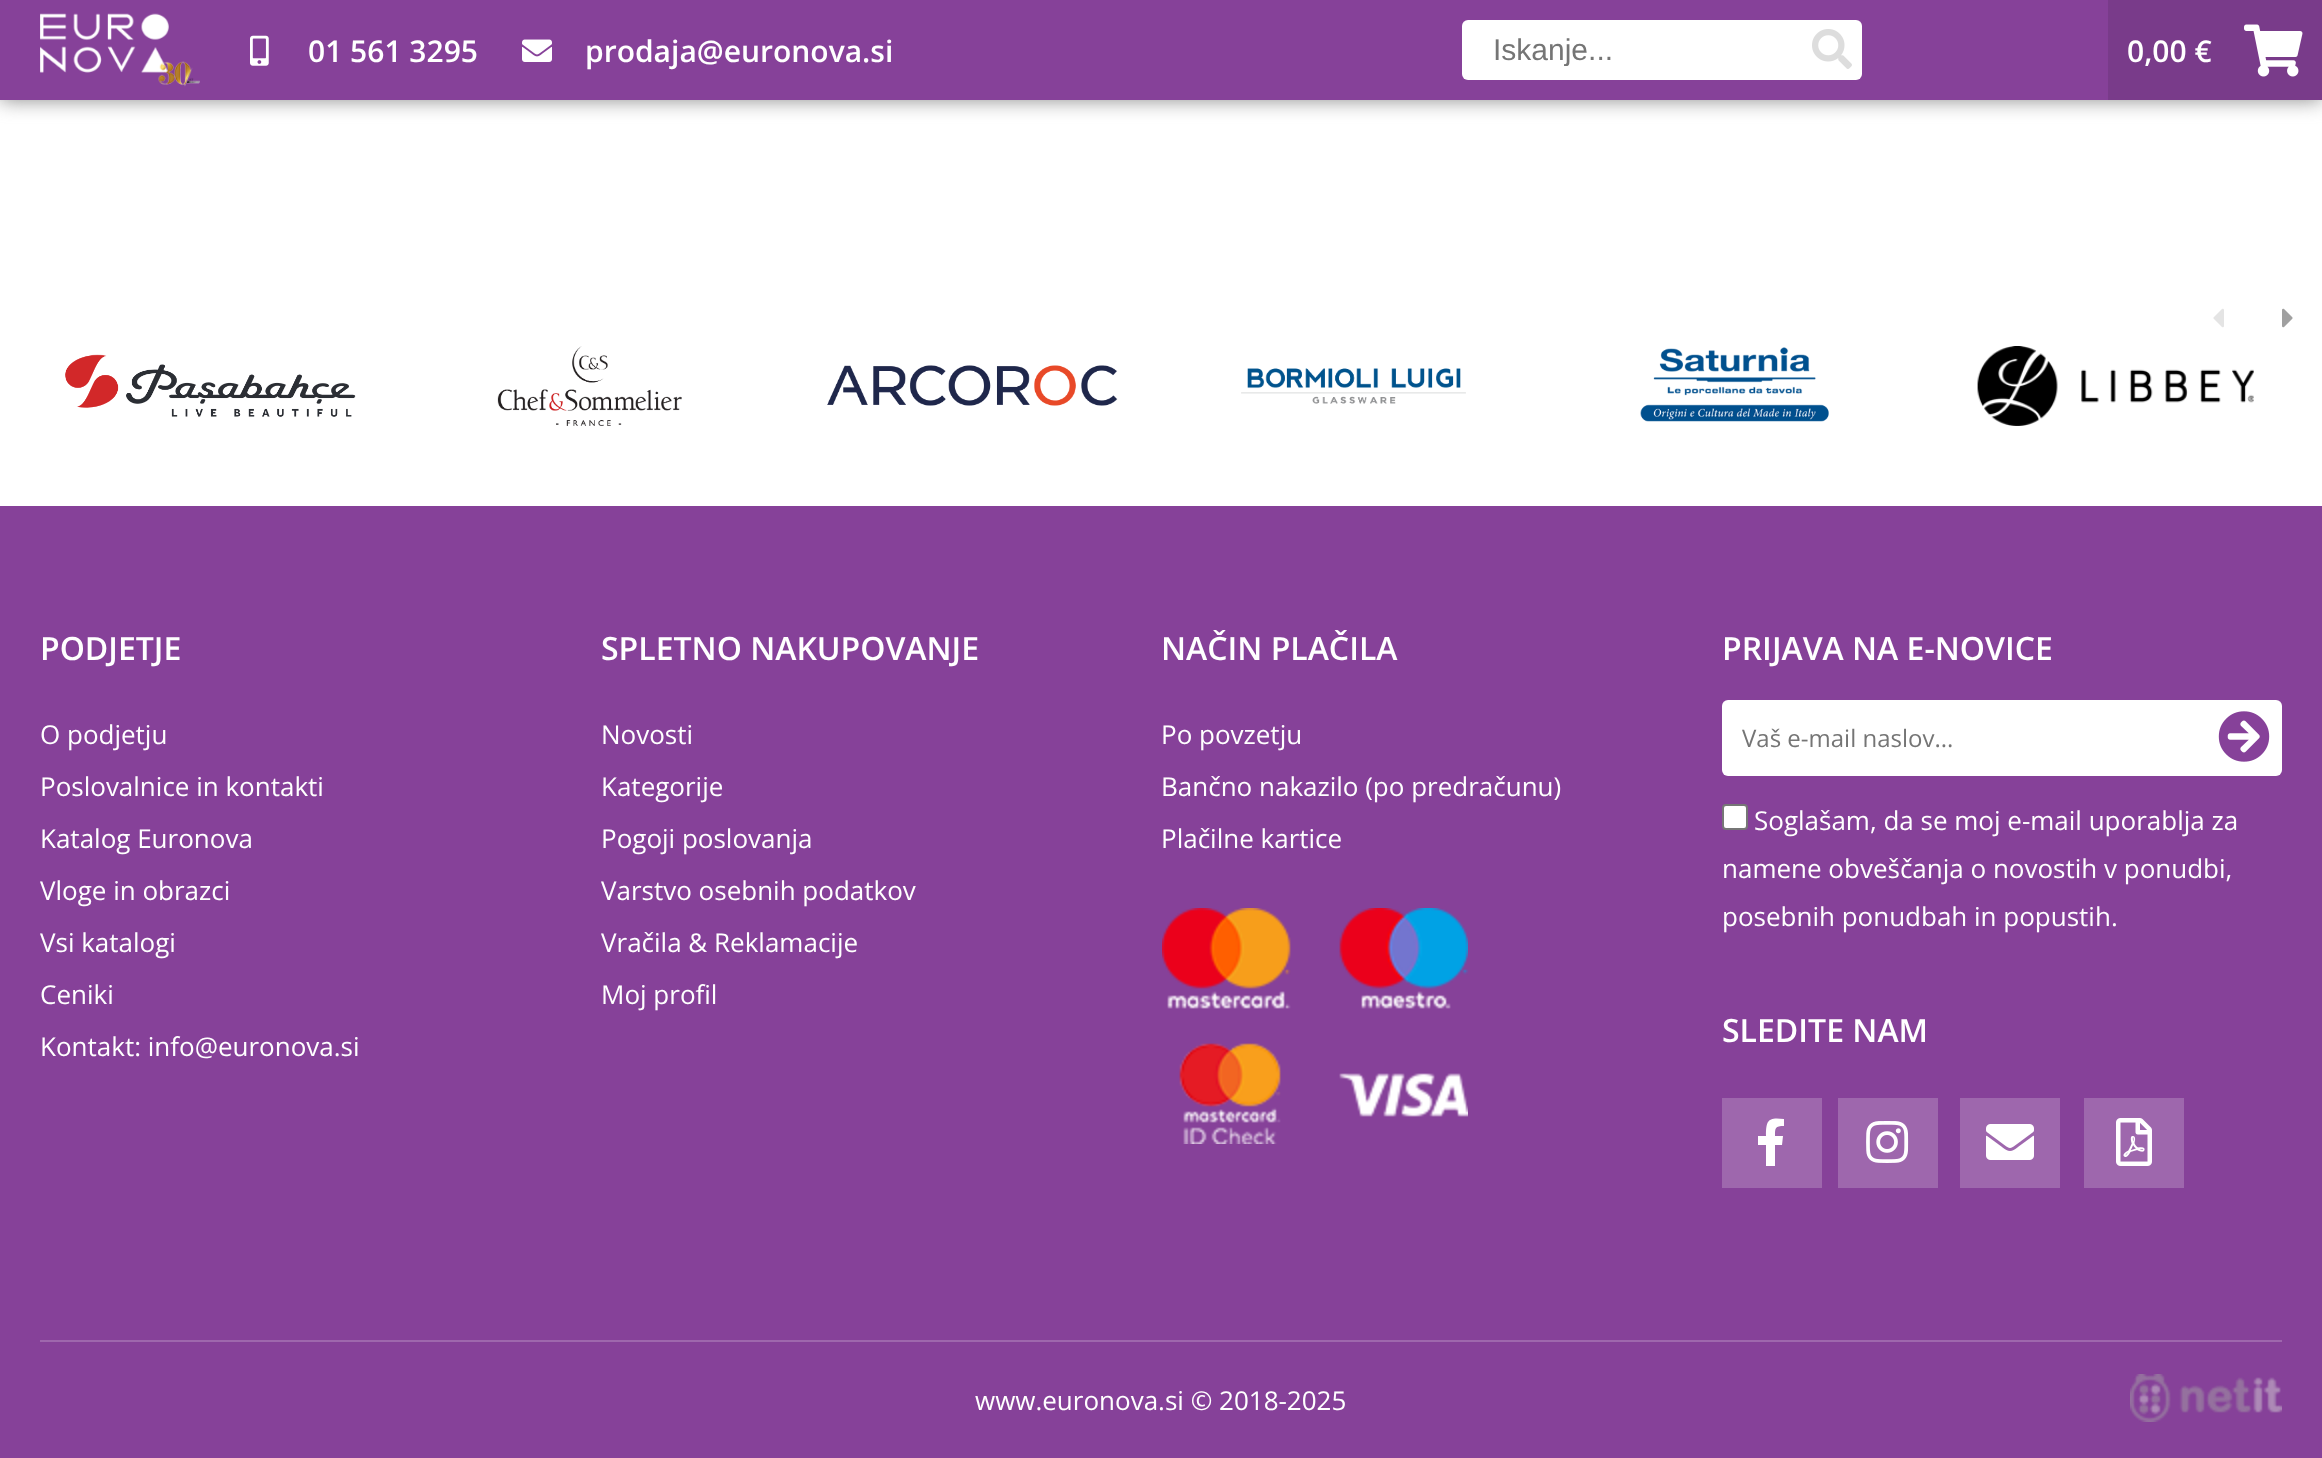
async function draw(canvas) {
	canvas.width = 2322;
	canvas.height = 1458;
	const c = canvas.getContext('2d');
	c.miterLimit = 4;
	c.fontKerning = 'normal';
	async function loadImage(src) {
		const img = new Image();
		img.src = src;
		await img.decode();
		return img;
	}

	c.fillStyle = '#864199';
	c.fillRect(0, 0, 2322, 1458);
	c.fillStyle = '#fff';
	c.fillRect(0, 100, 2322, 406);
	c.fillStyle = '#888';
	c.filter = 'blur(10px)';
	c.beginPath();
	c.rect(0, 0, 2322, 100);
	c.fill();
	c.filter = 'none';
	c.fillStyle = '#864199';
	c.fillRect(0, 0, 2108, 100);
	c.drawImage(await loadImage('img1.png'), 40, 13, 160, 74);
	c.drawImage(await loadImage('img2.png'), 250, 35, 19, 31);
	c.font = '600 30px Open Sans';
	c.fillStyle = '#fff';
	c.fillText('01 561 3295', 308, 62);
	c.drawImage(await loadImage('img3.png'), 522, 39, 30, 23);
	c.fillText('prodaja@euronova.si', 585, 62);
	c.beginPath();
	c.roundRect(1462, 20, 400, 60, 6);
	c.fill();
	c.save();
	c.beginPath();
	c.rect(1492, 32, 270, 34);
	c.clip();
	c.font = '30px Liberation Sans';
	c.fillStyle = '#757575';
	c.fillText('Iskanje...', 1493, 60);
	c.restore();
	c.drawImage(await loadImage('img4.png'), 1812, 29, 40, 40);
	c.fillStyle = '#793b8a';
	c.fillRect(2108, 0, 214, 100);
	c.fillStyle = '#fff';
	c.fillText('0,00 €', 2127, 62);
	c.drawImage(await loadImage('img5.png'), 2244, 24, 59, 53);
	c.drawImage(await loadImage('img6.png'), 2213, 308, 11, 20);
	c.drawImage(await loadImage('img7.png'), 2282, 308, 11, 20);
	c.drawImage(await loadImage('img8.png'), 65, 354, 291, 63);
	c.drawImage(await loadImage('img9.png'), 497, 346, 185, 80);
	c.drawImage(await loadImage('img10.png'), 827, 365, 291, 41);
	c.drawImage(await loadImage('img11.png'), 1241, 368, 225, 36);
	c.drawImage(await loadImage('img12.png'), 1640, 347, 189, 75);
	c.drawImage(await loadImage('img13.png'), 1977, 346, 277, 80);
	c.font = '600 32px Open Sans';
	c.fillText('PODJETJE', 40, 660);
	c.font = '26px Open Sans';
	for (const [text, x, y] of [
		['O podjetju', 40, 744],
		['Poslovalnice in kontakti', 40, 796],
		['Katalog Euronova', 40, 848],
		['Vloge in obrazci', 40, 900],
		['Vsi katalogi', 40, 952],
		['Ceniki', 40, 1004],
		['Kontakt: info@euronova.si', 40, 1056],
	]) {
		c.fillText(text, x, y);
	}
	c.font = '600 32px Open Sans';
	c.fillText('SPLETNO NAKUPOVANJE', 601, 660);
	c.font = '26px Open Sans';
	for (const [text, x, y] of [
		['Novosti', 601, 744],
		['Kategorije', 601, 796],
		['Pogoji poslovanja', 601, 848],
		['Varstvo osebnih podatkov', 601, 900],
		['Vračila & Reklamacije', 601, 952],
		['Moj profil', 601, 1004],
	]) {
		c.fillText(text, x, y);
	}
	c.font = '600 32px Open Sans';
	c.fillText('NAČIN PLAČILA', 1161, 660);
	c.font = '26px Open Sans';
	for (const [text, x, y] of [
		['Po povzetju', 1161, 744],
		['Bančno nakazilo (po predračunu)', 1161, 796],
		['Plačilne kartice', 1161, 848],
	]) {
		c.fillText(text, x, y);
	}
	c.drawImage(await loadImage('img14.png'), 1162, 908, 306, 236);
	c.font = '600 32px Open Sans';
	c.fillText('PRIJAVA NA E-NOVICE', 1722, 660);
	c.beginPath();
	c.roundRect(1722, 700, 560, 76, 6);
	c.fill();
	c.font = '24px Open Sans';
	c.fillStyle = '#757575';
	c.fillText('Vaš e-mail naslov...', 1742, 747);
	c.drawImage(await loadImage('img15.png'), 2218, 711, 52, 51);
	c.fillStyle = '#fff';
	c.beginPath();
	c.roundRect(1723, 805, 24, 24, 3);
	c.fill();
	c.strokeStyle = '#767676';
	c.lineWidth = 2;
	c.stroke();
	c.font = '26px Open Sans';
	for (const [text, x, y] of [
		['Soglašam, da se moj e-mail uporablja za', 1754, 830],
		['namene obveščanja o novostih v ponudbi,', 1722, 878],
		['posebnih ponudbah in popustih.', 1722, 926],
	]) {
		c.fillText(text, x, y);
	}
	c.font = '600 32px Open Sans';
	c.fillText('SLEDITE NAM', 1722, 1042);
	c.fillStyle = '#9e67ad';
	c.fillRect(1722, 1098, 100, 90);
	c.fillStyle = '#fff';
	c.beginPath();
	c.moveTo(1782, 1145);
	c.lineTo(1775, 1145);
	c.lineTo(1775, 1166);
	c.lineTo(1766, 1166);
	c.lineTo(1766, 1145);
	c.lineTo(1758, 1145);
	c.lineTo(1758, 1136);
	c.lineTo(1766, 1136);
	c.bezierCurveTo(1766, 1120, 1768, 1117, 1784, 1119);
	c.lineTo(1784, 1126);
	c.bezierCurveTo(1775, 1126, 1775, 1128, 1775, 1136);
	c.lineTo(1783, 1136);
	c.closePath();
	c.fill();
	c.fillStyle = '#9e67ad';
	c.fillRect(1838, 1098, 100, 90);
	c.drawImage(await loadImage('img16.png'), 1866, 1121, 43, 42);
	c.fillRect(1960, 1098, 100, 90);
	c.drawImage(await loadImage('img17.png'), 1986, 1124, 48, 36);
	c.fillRect(2084, 1098, 100, 90);
	c.drawImage(await loadImage('img18.png'), 2116, 1118, 36, 48);
	c.fillRect(40, 1340, 2242, 2);
	c.font = '26px Open Sans';
	c.fillStyle = '#fff';
	c.fillText('www.euronova.si © 2018-2025', 975, 1410);
	c.drawImage(await loadImage('img19.png'), 2130, 1374, 152, 48);
}

draw(document.querySelector('canvas'));
